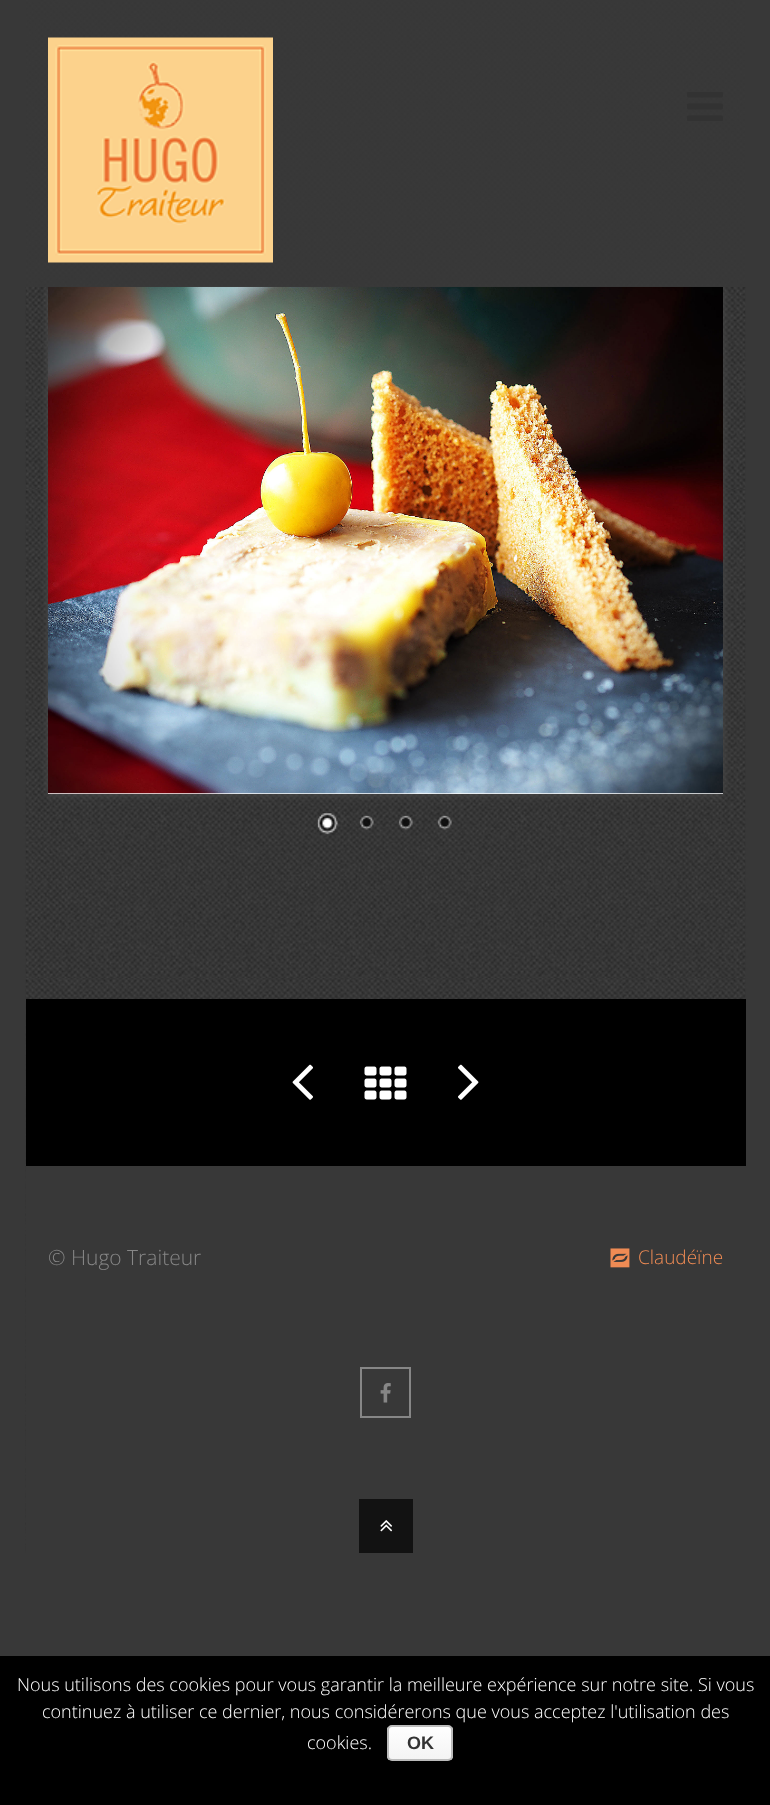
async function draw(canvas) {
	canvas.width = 770;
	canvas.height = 1805;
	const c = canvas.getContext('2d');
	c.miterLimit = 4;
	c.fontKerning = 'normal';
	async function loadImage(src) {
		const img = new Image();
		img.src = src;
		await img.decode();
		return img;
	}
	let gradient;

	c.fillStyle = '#383838';
	c.fillRect(0, 0, 770, 1805);
	c.drawImage(await loadImage('img3.png'), 25, 0, 721, 1553);
	c.fillStyle = '#4a4a4a';
	c.filter = 'blur(4px)';
	c.beginPath();
	c.rect(48, 288, 675, 507);
	c.fill();
	c.filter = 'none';
	c.fillStyle = '#fff';
	c.fillRect(48, 793, 675, 1);
	c.drawImage(await loadImage('img4.png'), 48, 286, 675, 508);
	c.fillStyle = '#383838e6';
	c.fillRect(25, 0, 721, 287);
	c.drawImage(await loadImage('img1.png'), 48, 37, 225, 226);
	c.drawImage(await loadImage('img2.png'), 687, 92, 36, 29);
	c.drawImage(await loadImage('img5.png'), 317, 812, 21, 23);
	c.drawImage(await loadImage('img6.png'), 359, 815, 15, 15);
	c.drawImage(await loadImage('img7.png'), 398, 815, 15, 15);
	c.drawImage(await loadImage('img8.png'), 437, 815, 15, 15);
	c.fillStyle = '#000';
	c.fillRect(26, 999, 720, 167);
	c.drawImage(await loadImage('img9.png'), 292, 1064, 21, 36);
	c.drawImage(await loadImage('img10.png'), 364, 1066, 43, 34);
	c.drawImage(await loadImage('img11.png'), 458, 1064, 21, 36);
	c.fillStyle = '#383838';
	c.fillRect(26, 1166, 720, 387);
	c.font = '300 21px Open Sans';
	c.fillStyle = '#868686';
	c.fillText('© Hugo Traiteur', 48, 1265);
	c.drawImage(await loadImage('img12.png'), 610, 1248, 20, 20);
	c.font = '300 19px Open Sans';
	c.fillStyle = '#ef8b54';
	c.fillText('Claudéïne', 638, 1264);
	c.strokeStyle = '#868686';
	c.lineWidth = 2;
	c.strokeRect(361, 1368, 49, 49);
	c.drawImage(await loadImage('img13.png'), 380, 1383, 11, 20);
	c.fillStyle = '#121212';
	c.fillRect(359, 1499, 54, 54);
	c.drawImage(await loadImage('img14.png'), 380, 1520, 13, 12);
	c.fillStyle = '#000';
	c.fillRect(0, 1656, 770, 149);
	c.font = '300 18px Open Sans';
	c.fillStyle = '#fff';
	for (const [text, x, y] of [
		['Nous utilisons des cookies pour vous garantir la meilleure expérience sur notre site. Si vous', 17, 1691],
		['continuez à utiliser ce dernier, nous considérerons que vous acceptez l\'utilisation des', 42, 1718],
		['cookies.', 307, 1749],
	]) {
		c.fillText(text, x, y);
	}
	c.save();
	c.beginPath();
	c.roundRect(387, 1725, 66, 36, 5);
	c.clip();
	gradient = c.createLinearGradient(420, 1727, 420, 1760);
	gradient.addColorStop(0, '#fefefe');
	gradient.addColorStop(1, '#f4f4f4');
	c.fillStyle = gradient;
	c.fillRect(387, 1727, 66, 33);
	c.restore();
	c.beginPath();
	c.roundRect(388, 1726, 64, 34, 4);
	c.strokeStyle = '#bbb';
	c.stroke();
	c.font = 'bold 18px Liberation Sans';
	c.fillStyle = '#333';
	c.fillText('OK', 407, 1749);
}

draw(document.querySelector('canvas'));
